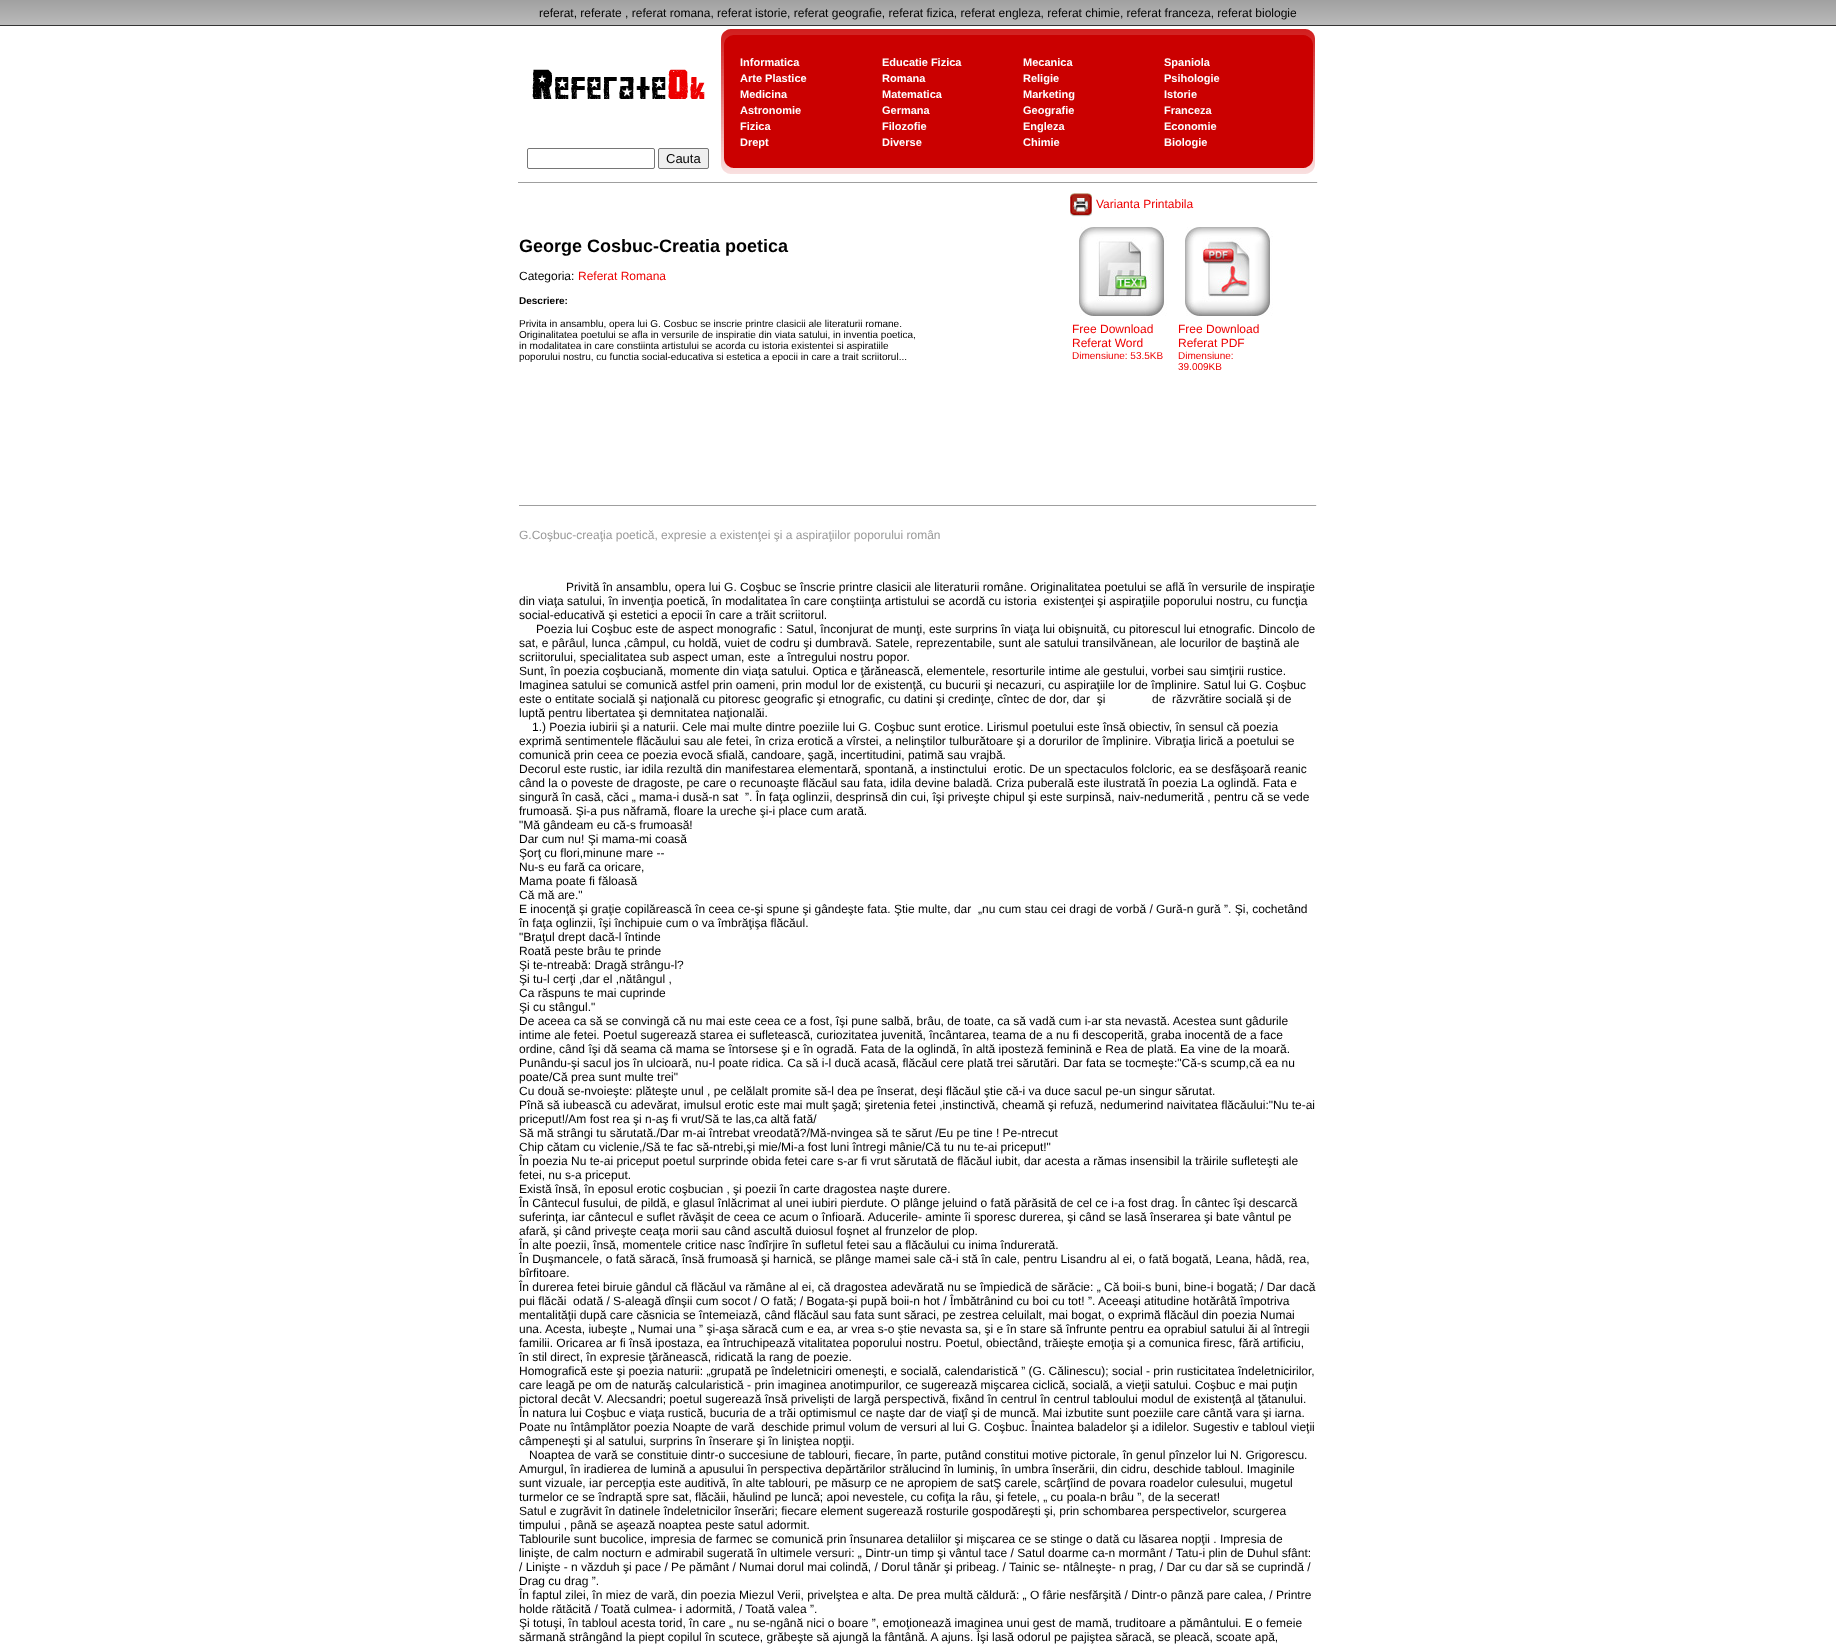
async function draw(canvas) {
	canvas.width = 1836;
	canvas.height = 1648;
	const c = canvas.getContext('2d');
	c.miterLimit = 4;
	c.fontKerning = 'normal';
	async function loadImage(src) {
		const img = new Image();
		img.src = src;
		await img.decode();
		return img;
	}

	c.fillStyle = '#fff';
	c.fillRect(0, 0, 1836, 1648);
	c.drawImage(await loadImage('img1.png'), 0, 0, 1836, 25);
	c.font = '12px Liberation Sans';
	c.fillStyle = '#000';
	c.fillText('referat, referate , referat romana, referat istorie, referat geografie, referat fizica, referat engleza, referat chimie, referat franceza, referat biologie', 539, 17);
	c.fillStyle = '#333';
	c.fillRect(0, 25, 1836, 1);
	c.drawImage(await loadImage('img2.png'), 721, 29, 17, 20);
	c.drawImage(await loadImage('img3.png'), 738, 29, 565, 20);
	c.drawImage(await loadImage('img4.png'), 1303, 29, 12, 20);
	c.drawImage(await loadImage('img5.png'), 721, 49, 17, 105);
	c.fillStyle = '#cb0000';
	c.fillRect(738, 49, 565, 105);
	c.font = 'bold 11px Liberation Sans';
	c.fillStyle = '#fff';
	for (const [text, x, y] of [
		['Informatica', 740, 66],
		['Educatie Fizica', 882, 66],
		['Mecanica', 1023, 66],
		['Spaniola', 1164, 66],
		['Arte Plastice', 740, 82],
		['Romana', 882, 82],
		['Religie', 1023, 82],
		['Psihologie', 1164, 82],
		['Medicina', 740, 98],
		['Matematica', 882, 98],
		['Marketing', 1023, 98],
		['Istorie', 1164, 98],
		['Astronomie', 740, 114],
		['Germana', 882, 114],
		['Geografie', 1023, 114],
		['Franceza', 1164, 114],
		['Fizica', 740, 130],
		['Filozofie', 882, 130],
		['Engleza', 1023, 130],
		['Economie', 1164, 130],
		['Drept', 740, 146],
		['Diverse', 882, 146],
		['Chimie', 1023, 146],
		['Biologie', 1164, 146],
	]) {
		c.fillText(text, x, y);
	}
	c.drawImage(await loadImage('img6.png'), 1303, 49, 12, 105);
	c.drawImage(await loadImage('img7.png'), 721, 154, 17, 20);
	c.drawImage(await loadImage('img8.png'), 738, 154, 565, 20);
	c.drawImage(await loadImage('img9.png'), 1303, 154, 12, 20);
	c.drawImage(await loadImage('img10.png'), 532, 69, 173, 30);
	c.beginPath();
	c.roundRect(527.5, 148.5, 127, 20, 1.5);
	c.strokeStyle = '#767676';
	c.stroke();
	c.fillStyle = '#efefef';
	c.beginPath();
	c.roundRect(658.5, 148.5, 50, 20, 1.5);
	c.fill();
	c.stroke();
	c.font = '13px Liberation Sans';
	c.fillStyle = '#000';
	c.fillText('Cauta', 666, 163);
	c.fillStyle = '#9f9f9f';
	c.fillRect(518, 182, 800, 1);
	c.fillStyle = '#eee';
	c.fillRect(1317, 182, 1, 1);
	c.font = 'bold 18px Liberation Sans';
	c.fillStyle = '#000';
	c.fillText('George Cosbuc-Creatia poetica', 519, 252);
	c.font = '12px Liberation Sans';
	c.fillText('Categoria:', 519, 280);
	c.fillStyle = '#ed0000';
	c.fillText('Referat Romana', 578, 280);
	c.font = 'bold 10px Liberation Sans';
	c.fillStyle = '#000';
	c.fillText('Descriere:', 519, 304);
	c.font = '10px Liberation Sans';
	for (const [text, x, y] of [
		['Privita in ansamblu, opera lui G. Cosbuc se inscrie printre clasicii ale literaturii romane.', 519, 327],
		['Originalitatea poetului se afla in versurile de inspiratie din viata satului, in inventia poetica,', 519, 338],
		['in modalitatea in care constiinta artistului se acorda cu istoria existentei si aspiratiile', 519, 349],
		['poporului nostru, cu functia social-educativa si estetica a epocii in care a trait scriitorul...', 519, 360],
	]) {
		c.fillText(text, x, y);
	}
	c.drawImage(await loadImage('img11.png'), 1070, 193, 22, 24);
	c.font = '12px Liberation Sans';
	c.fillStyle = '#ed0000';
	c.fillText('Varianta Printabila', 1096, 208);
	c.drawImage(await loadImage('img12.png'), 1079, 227, 88, 89);
	c.fillText('Free Download', 1072, 333);
	c.fillText('Referat Word', 1072, 347);
	c.font = '10px Liberation Sans';
	c.fillText('Dimensiune: 53.5KB', 1072, 359);
	c.drawImage(await loadImage('img13.png'), 1185, 227, 88, 89);
	c.font = '12px Liberation Sans';
	c.fillText('Free Download', 1178, 333);
	c.fillText('Referat PDF', 1178, 347);
	c.font = '10px Liberation Sans';
	c.fillText('Dimensiune:', 1178, 359);
	c.fillText('39.009KB', 1178, 370);
	c.fillStyle = '#9f9f9f';
	c.fillRect(519, 505, 798, 1);
	c.fillStyle = '#eee';
	c.fillRect(1316, 505, 1, 1);
	c.font = '12px Liberation Sans';
	c.fillStyle = '#999';
	c.fillText('G.Coşbuc-creaţia poetică, expresie a existenţei şi a aspiraţiilor poporului român', 519, 539);
	c.fillStyle = '#000';
	for (const [text, x, y] of [
		['Privită în ansamblu, opera lui G. Coşbuc se înscrie printre clasicii ale literaturii române. Originalitatea poetului se află în versurile de inspiraţie', 566, 591],
		['din viaţa satului, în invenţia poetică, în modalitatea în care conştiinţa artistului se acordă cu istoria  existenţei şi aspiraţiile poporului nostru, cu funcţia', 519, 605],
		['social-educativă şi estetici a epocii în care a trăit scriitorul.', 519, 619],
		['Poezia lui Coşbuc este de aspect monografic : Satul, înconjurat de munţi, este surprins în viaţa lui obişnuită, cu pitorescul lui etnografic. Dincolo de', 536, 633],
		['sat, e pârâul, lunca ,câmpul, cu holdă, vuiet de codru şi dumbravă. Satele, reprezentabile, sunt ale satului transilvănean, ale locurilor de baştină ale', 519, 647],
		['scriitorului, specialitatea sub aspect uman, este  a întregului nostru popor.', 519, 661],
		['Sunt, în poezia coşbuciană, momente din viaţa satului. Optica e ţărănească, elementele, resorturile intime ale gestului, vorbei sau simţirii rustice.', 519, 675],
		['Imaginea satului se comunică astfel prin oameni, prin modul lor de existenţă, cu bucurii şi necazuri, cu aspiraţiile lor de împlinire. Satul lui G. Coşbuc', 519, 689],
		['este o entitate socială şi naţională cu pitoresc geografic şi etnografic, cu datini şi credinţe, cîntec de dor, dar  şi              de  răzvrătire socială şi de', 519, 703],
		['luptă pentru libertatea şi demnitatea naţionalăi.', 519, 717],
		['1.) Poezia iubirii şi a naturii. Cele mai multe dintre poeziile lui G. Coşbuc sunt erotice. Lirismul poetului este însă obiectiv, în sensul că poezia', 532, 731],
		['exprimă sentimentele flăcăului sau ale fetei, în criza erotică a vîrstei, a nelinştilor tulburătoare şi a dorurilor de împlinire. Vibraţia lirică a poetului se', 519, 745],
		['comunică prin ceea ce poezia evocă sfială, candoare, şagă, incertitudini, patimă sau vrajbă.', 519, 759],
		['Decorul este rustic, iar idila rezultă din manifestarea elementară, spontană, a instinctului  erotic. De un spectaculos folcloric, ea se desfăşoară reanic', 519, 773],
		['când la o poveste de dragoste, pe care o recunoaşte flăcăul sau fata, idila devine baladă. Criza puberală este ilustrată în poezia La oglindă. Fata e', 519, 787],
		['singură în casă, căci „ mama-i dusă-n sat  ”. În faţa oglinzii, desprinsă din cui, îşi priveşte chipul şi este surpinsă, naiv-nedumerită , pentru că se vede', 519, 801],
		['frumoasă. Şi-a pus năframă, floare la ureche şi-i place cum arată.', 519, 815],
		['"Mă gândeam eu că-s frumoasă!', 519, 829],
		['Dar cum nu! Şi mama-mi coasă', 519, 843],
		['Şorţ cu flori,minune mare --', 519, 857],
		['Nu-s eu fară ca oricare,', 519, 871],
		['Mama poate fi făloasă', 519, 885],
		['Că mă are."', 519, 899],
		['E inocenţă şi graţie copilărească în ceea ce-şi spune şi gândeşte fata. Ştie multe, dar', 519, 913],
		['„nu cum stau cei dragi de vorbă / Gură-n gură ”. Şi, cochetând', 978, 913],
		['în faţa oglinzii, îşi închipuie cum o va îmbrăţişa flăcăul.', 519, 927],
		['"Braţul drept dacă-l întinde', 519, 941],
		['Roată peste brâu te prinde', 519, 955],
		['Şi te-ntreabă: Dragă strângu-l?', 519, 969],
		['Şi tu-l cerţi ,dar el ,nătângul ,', 519, 983],
		['Ca răspuns te mai cuprinde', 519, 997],
		['Şi cu stângul."', 519, 1011],
		['De aceea ca să se convingă că nu mai este ceea ce a fost, îşi pune salbă, brâu, de toate, ca să vadă cum i-ar sta nevastă. Acestea sunt gâdurile', 519, 1025],
		['intime ale fetei. Poetul sugerează starea ei sufletească, curiozitatea juvenită, încântarea, teama de a nu fi descoperită, graba inocentă de a face', 519, 1039],
		['ordine, când îşi dă seama că mama se întorsese şi e în ogradă. Fata de la oglindă, în altă iposteză feminină e Rea de plată. Ea vine de la moară.', 519, 1053],
		['Punându-şi sacul jos în ulcioară, nu-l poate ridica. Ca să i-l ducă acasă, flăcăul cere plată trei sărutări. Dar fata se tocmeşte:"Că-s scump,că ea nu', 519, 1067],
		['poate/Că prea sunt multe trei"', 519, 1081],
		['Cu două se-nvoieşte: plăteşte unul , pe celălalt promite să-l dea pe înserat, deşi flăcăul ştie că-i va duce sacul pe-un singur sărutat.', 519, 1095],
		['Pînă să iubească cu adevărat, imulsul erotic este mai mult şagă; şiretenia fetei ,instinctivă, cheamă şi refuză, nedumerind naivitatea flăcăului:"Nu te-ai', 519, 1109],
		['priceput!/Am fost rea şi n-aş fi vrut/Să te las,ca altă fată/', 519, 1123],
		['Să mă strângi tu sărutată./Dar m-ai întrebat vreodată?/Mă-nvingea să te sărut /Eu pe tine ! Pe-ntrecut', 519, 1137],
		['Chip cătam cu viclenie,/Să te fac să-ntrebi,şi mie/Mi-a fost luni întregi mânie/Că tu nu te-ai priceput!"', 519, 1151],
		['În poezia Nu te-ai priceput poetul surprinde obida fetei care s-ar fi vrut sărutată de flăcăul iubit, dar acesta a rămas insensibil la trăirile sufleteşti ale', 519, 1165],
		['fetei, nu s-a priceput.', 519, 1179],
		['Există însă, în eposul erotic coşbucian , şi poezii în carte dragostea naşte durere.', 519, 1193],
		['În Cântecul fusului, de pildă, e glasul înlăcrimat al unei iubiri pierdute. O plânge jeluind o fată părăsită de cel ce i-a fost drag. În cântec îşi descarcă', 519, 1207],
		['suferinţa, iar cântecul e suflet răvăşit de ceea ce acum o înfioară. Aducerile- aminte îi sporesc durerea, şi când se lasă înserarea şi bate vântul pe', 519, 1221],
		['afară, şi când priveşte ceaţa morii sau când ascultă duiosul foşnet al frunzelor de plop.', 519, 1235],
		['În alte poezii, însă, momentele critice nasc îndîrjire în sufletul fetei sau a flăcăului cu inima îndurerată.', 519, 1249],
		['În Duşmancele, o fată săracă, însă frumoasă şi harnică, se plânge mamei sale că-i stă în cale, pentru Lisandru al ei, o fată bogată, Leana, hâdă, rea,', 519, 1263],
		['bîrfitoare.', 519, 1277],
		['În durerea fetei biruie gândul că flăcăul va rămâne al ei, că dragostea adevărată nu se împiedică de sărăcie: „ Că boii-s buni, bine-i bogată; / Dar dacă', 519, 1291],
		['pui flăcăi  odată / S-aleagă dînşii cum socot / O fată; / Bogata-şi pupă boii-n hot / Îmbătrânind cu boi cu tot! ”. Aceeaşi atitudine hotărâtă împotriva', 519, 1305],
		['mentalităţii după care căsnicia se întemeiază, când flăcăul sau fata sunt săraci, pe zestrea celuilalt, mai bogat, o exprimă flăcăul din poezia Numai', 519, 1319],
		['una. Acesta, iubeşte „ Numai una ” şi-aşa săracă cum e ea, ar vrea s-o ştie nevasta sa, şi e în stare să înfrunte pentru ea oprabiul satului ăi al întregii', 519, 1333],
		['familii. Oricarea ar fi însă ipostaza, ea întruchipează vitalitatea poporului nostru. Poetul, obiectând, trăieşte emoţia şi a comunica firesc, fără artificiu,', 519, 1347],
		['în stil direct, în expresie ţărănească, ridicată la rang de poezie.', 519, 1361],
		['Homografică este şi poezia naturii: „grupată pe îndeletniciri omeneşti, e socială, calendaristică ” (G. Călinescu); social - prin rusticitatea îndeletnicirilor,', 519, 1375],
		['care leagă pe om de naturăş calcularistică - prin imaginea anotimpurilor, ce sugerează mişcarea ciclică, socială, a vieţii satului. Coşbuc e mai puţin', 519, 1389],
		['pictoral decât V. Alecsandri; poetul sugerează însă privelişti de largă perspectivă, fixând în centrul în centrul tabloului modul de existenţâ al ţătanului.', 519, 1403],
		['În natura lui Coşbuc e viaţa rustică, bucuria de a trăi optimismul ce naşte dar de viaţî şi de muncă. Mai izbutite sunt poeziile care cântă vara şi iarna.', 519, 1417],
		['Poate nu întâmplător poezia Noapte de vară  deschide primul volum de versuri al lui G. Coşbuc. Înaintea baladelor şi a idilelor. Sugestiv e tabloul vieţii', 519, 1431],
		['câmpeneşti şi al satului, surprins în înserare şi în liniştea nopţii.', 519, 1445],
		['Noaptea de vară se constituie dintr-o succesiune de tablouri, fiecare, în parte, putând constitui motive pictorale, în genul pînzelor lui N. Grigorescu.', 529, 1459],
		['Amurgul, în iradierea de lumină a apusului în perspectiva depărtărilor strălucind în luminiş, în umbra înserării, din cidru, deschide tabloul. Imaginile', 519, 1473],
		['sunt vizuale, iar percepţia este auditivă, în alte tablouri, pe măsurp ce ne apropiem de satŞ carele, scârţîind de povara roadelor culesului, mugetul', 519, 1487],
		['turmelor ce se îndraptă spre sat, flăcăii, hăulind pe luncă; apoi nevestele, cu cofiţa la râu, şi fetele, „ cu poala-n brâu ”, de la secerat!', 519, 1501],
		['Satul e zugrăvit în datinele îndeletnicilor înserări; fiecare element sugerează rosturile gospodăreşti şi, prin schombarea perspectivelor, scurgerea', 519, 1515],
		['timpului , până se aşează noaptea peste satul adormit.', 519, 1529],
		['Tablourile sunt bucolice, impresia de farmec se comunică prin însunarea detaliilor şi mişcarea ce se stinge o dată cu lăsarea nopţii . Impresia de', 519, 1543],
		['linişte, de calm nocturn e admirabil sugerată în ultimele versuri: „ Dintr-un timp şi vântul tace / Satul doarme ca-n mormânt / Tatu-i plin de Duhul sfânt:', 519, 1557],
		['/ Linişte - n văzduh şi pace / Pe pământ / Numai dorul mai colindă, / Dorul tânăr şi pribeag. / Tainic se- ntâlneşte- n prag, / Dar cu dar să se cuprindă /', 519, 1571],
		['Drag cu drag ”.', 519, 1585],
		['În faptul zilei, în miez de vară, din poezia Miezul Verii, privelştea e alta. De prea multă căldură: „ O fârie nesfărşită / Dintr-o pânză pare calea, / Printre', 519, 1599],
		['holde rătăcită / Toată culmea- i adormită, / Toată valea ”.', 519, 1613],
		['Şi totuşi, în tabloul acesta torid, în care „ nu se-ngână nici o boare ”, emoţionează imaginea unui gest de mamă, truditoare a pământului. E o femeie', 519, 1627],
		['sărmană strângând la piept copilul în scutece, grăbeşte să ajungă la fântână. A ajuns. Îşi lasă odorul pe pajiştea săracă, se pleacă, scoate apă,', 519, 1641],
	]) {
		c.fillText(text, x, y);
	}
}

draw(document.querySelector('canvas'));
